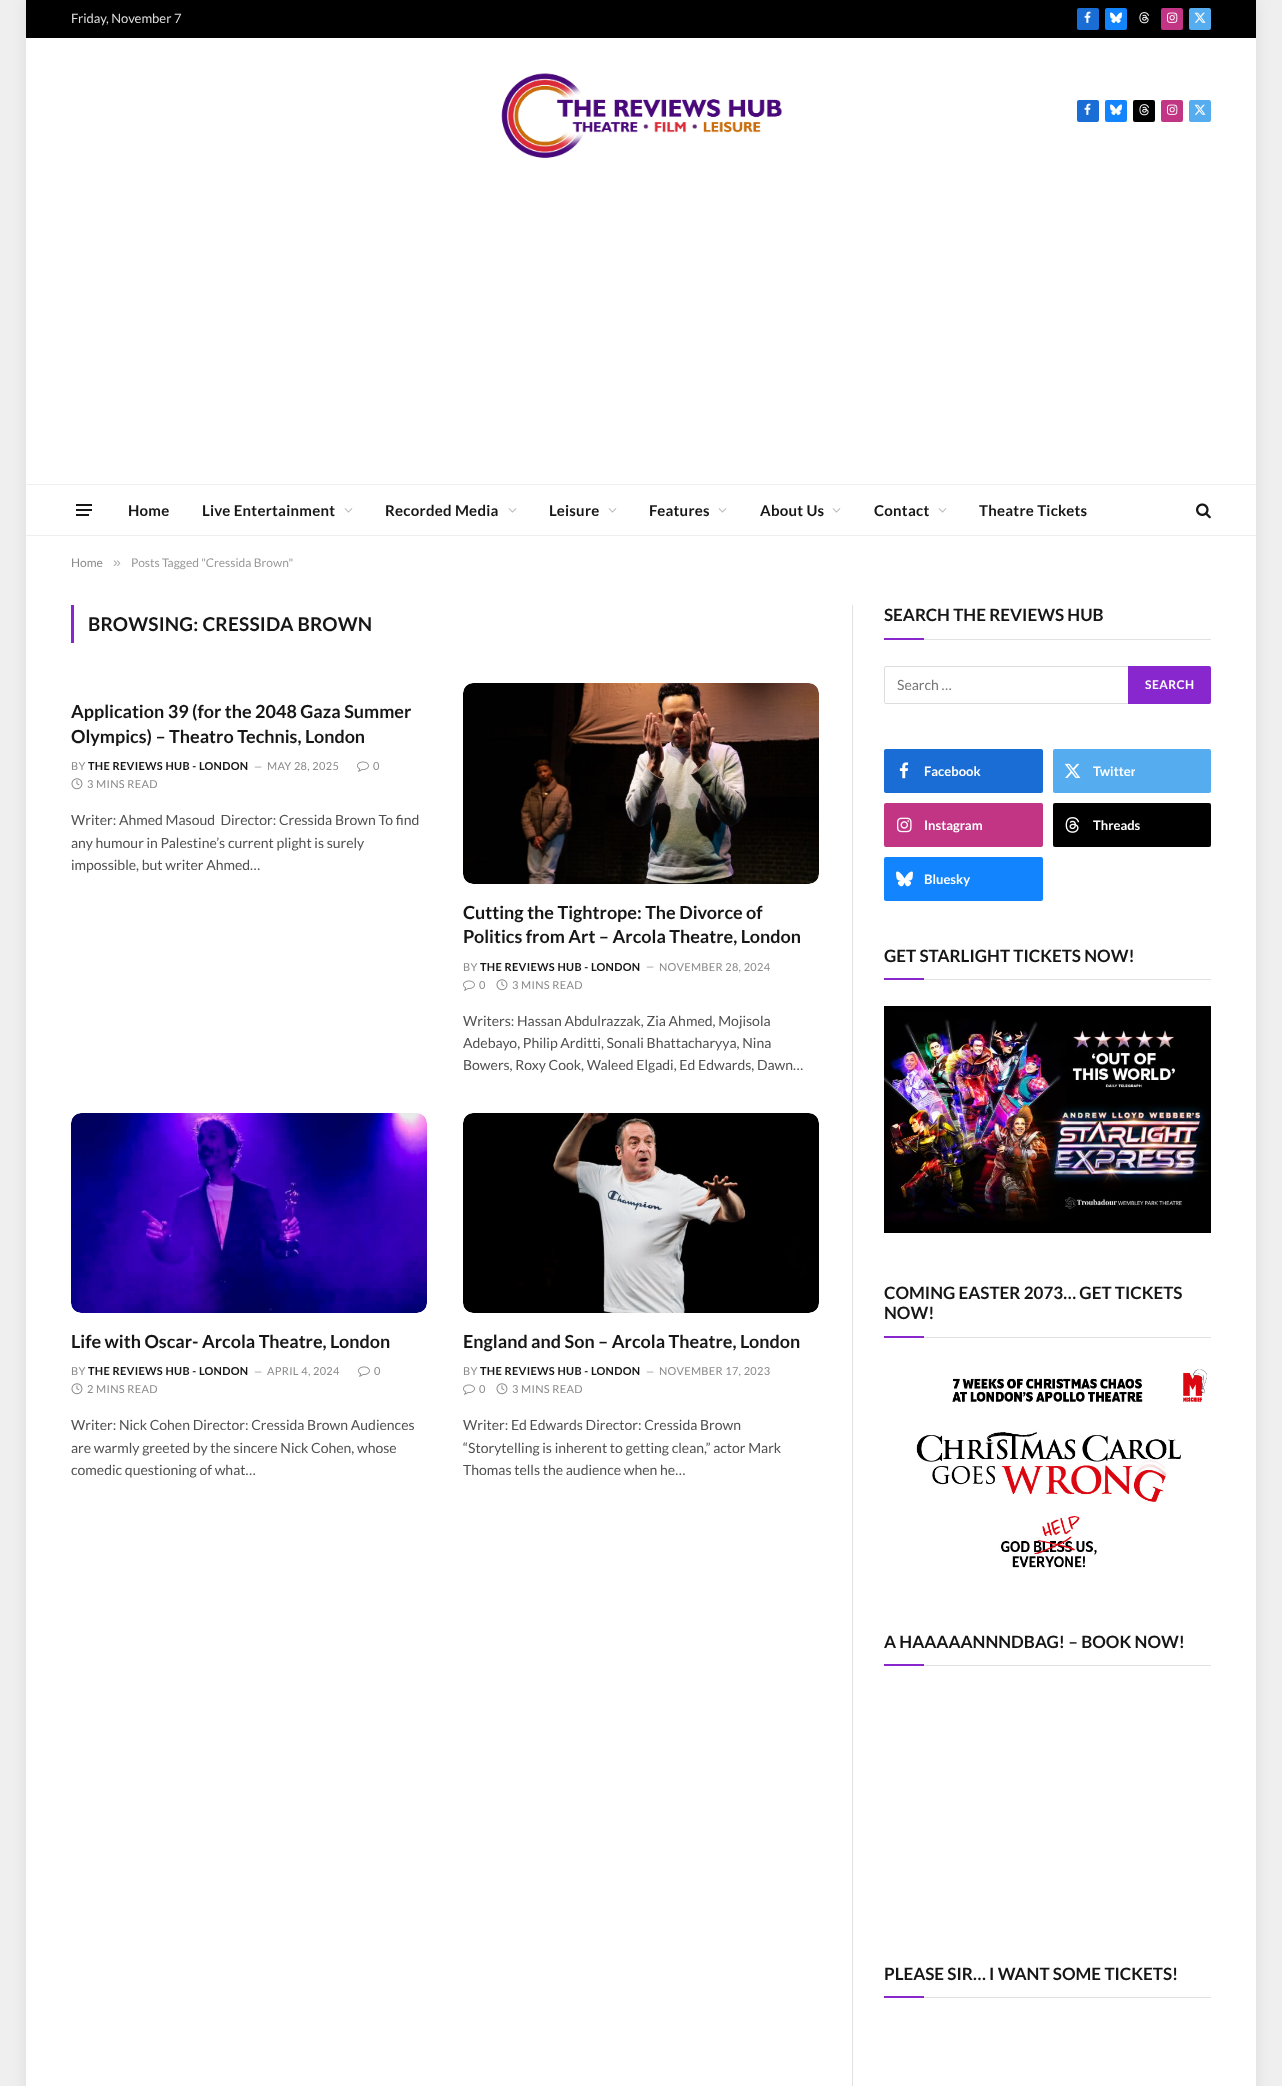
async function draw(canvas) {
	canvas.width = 1282;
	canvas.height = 2086;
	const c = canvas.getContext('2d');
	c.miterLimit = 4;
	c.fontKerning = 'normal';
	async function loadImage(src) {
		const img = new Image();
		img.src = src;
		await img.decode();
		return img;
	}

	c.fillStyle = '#efefef';
	c.fillRect(0, 0, 1282, 2086);
	c.fillStyle = '#00000014';
	c.filter = 'blur(7.5px)';
	c.beginPath();
	c.rect(26, 0, 1230, 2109);
	c.fill();
	c.filter = 'none';
	c.fillStyle = '#fff';
	c.fillRect(26, 38, 1230, 2048);
	c.fillStyle = '#000';
	c.fillRect(26, 0, 1230, 38);
	c.font = '13px Lato';
	c.fillStyle = '#ddd';
	c.fillText('Friday, November 7', 71, 23);
	c.fillStyle = '#1a6dd4';
	c.beginPath();
	c.roundRect(1077, 8, 22, 22, 2);
	c.fill();
	c.drawImage(await loadImage('img1.png'), 1084, 11, 7, 12);
	c.fillStyle = '#1285fe';
	c.beginPath();
	c.roundRect(1105, 8, 22, 22, 2);
	c.fill();
	c.drawImage(await loadImage('img2.png'), 1110, 12, 12, 11);
	c.drawImage(await loadImage('img3.png'), 1139, 12, 10, 12);
	c.fillStyle = '#c13584';
	c.beginPath();
	c.roundRect(1161, 8, 22, 22, 2);
	c.fill();
	c.drawImage(await loadImage('img4.png'), 1167, 12, 11, 11);
	c.fillStyle = '#55acef';
	c.beginPath();
	c.roundRect(1189, 8, 22, 22, 2);
	c.fill();
	c.drawImage(await loadImage('img5.png'), 1194, 12, 12, 11);
	c.drawImage(await loadImage('img6.png'), 501, 73, 281, 85);
	c.fillStyle = '#1a6dd4';
	c.beginPath();
	c.roundRect(1077, 100, 22, 22, 2);
	c.fill();
	c.drawImage(await loadImage('img1.png'), 1084, 103, 7, 12);
	c.fillStyle = '#1285fe';
	c.beginPath();
	c.roundRect(1105, 100, 22, 22, 2);
	c.fill();
	c.drawImage(await loadImage('img2.png'), 1110, 104, 12, 11);
	c.fillStyle = '#000';
	c.beginPath();
	c.roundRect(1133, 100, 22, 22, 2);
	c.fill();
	c.drawImage(await loadImage('img3.png'), 1139, 104, 10, 12);
	c.fillStyle = '#c13584';
	c.beginPath();
	c.roundRect(1161, 100, 22, 22, 2);
	c.fill();
	c.drawImage(await loadImage('img4.png'), 1167, 104, 11, 11);
	c.fillStyle = '#55acef';
	c.beginPath();
	c.roundRect(1189, 100, 22, 22, 2);
	c.fill();
	c.drawImage(await loadImage('img5.png'), 1194, 104, 12, 11);
	for (const [x, y, w, h, color] of [
		[26, 484, 1230, 1, '#efefef'],
		[26, 535, 1230, 1, '#efefef'],
		[76, 514, 13, 2, '#161616'],
		[76, 504, 16, 2, '#161616'],
		[76, 509, 16, 2, '#161616'],
	]) {
		c.fillStyle = color;
		c.fillRect(x, y, w, h);
	}
	c.letterSpacing = '0.25px';
	c.font = 'bold 15px Lato';
	c.fillText('Home', 128, 516);
	c.fillText('Live Entertainment', 202, 516);
	c.drawImage(await loadImage('img7.png'), 344, 508, 9, 5);
	c.fillText('Recorded Media', 385, 516);
	c.drawImage(await loadImage('img7.png'), 508, 508, 9, 5);
	c.fillText('Leisure', 549, 516);
	c.drawImage(await loadImage('img7.png'), 608, 508, 9, 5);
	c.fillText('Features', 649, 516);
	c.drawImage(await loadImage('img7.png'), 718, 508, 9, 5);
	c.fillText('About Us', 760, 516);
	c.drawImage(await loadImage('img7.png'), 832, 508, 9, 5);
	c.fillText('Contact', 874, 516);
	c.drawImage(await loadImage('img7.png'), 938, 508, 9, 5);
	c.fillText('Theatre Tickets', 979, 516);
	c.drawImage(await loadImage('img8.png'), 1196, 503, 15, 16);
	c.letterSpacing = '0px';
	c.font = '12px Lato';
	c.fillStyle = '#8a8a8a';
	c.fillText('Home', 71, 567);
	c.font = '14px Liberation Sans';
	c.fillStyle = '#adadad';
	c.fillText('»', 113, 567);
	c.font = '12px Lato';
	c.fillStyle = '#999';
	c.fillText('Posts Tagged "Cressida Brown"', 131, 567);
	c.fillStyle = '#8827ce';
	c.fillRect(71, 605, 3, 38);
	c.letterSpacing = '0.2px';
	c.font = 'bold 19px Lato';
	c.fillStyle = '#161616';
	c.fillText('BROWSING: CRESSIDA BROWN', 88, 631);
	c.letterSpacing = '0px';
	c.font = 'bold 18px Lato';
	c.fillText('Application 39 (for the 2048 Gaza Summer', 71, 718);
	c.fillText('Olympics) – Theatro Technis, London', 71, 743);
	c.letterSpacing = '0.3px';
	c.font = '11px Lato';
	c.fillStyle = '#8a8a8a';
	c.fillText('BY', 71, 770);
	c.font = 'bold 11px Lato';
	c.fillStyle = '#161616';
	c.fillText('THE REVIEWS HUB - LONDON', 88, 770);
	c.letterSpacing = '0.25px';
	c.font = '10px Lato';
	c.fillStyle = '#8a8a8a';
	c.fillText('—', 254, 770);
	c.letterSpacing = '0.3px';
	c.font = '11px Lato';
	c.fillText('MAY 28, 2025', 267, 770);
	c.drawImage(await loadImage('img9.png'), 357, 761, 12, 11);
	c.fillText('0', 373, 770);
	c.drawImage(await loadImage('img10.png'), 71, 778, 12, 12);
	c.fillText('3 MINS READ', 87, 788);
	c.letterSpacing = '0px';
	c.font = '14px Lato';
	c.fillStyle = '#505050';
	for (const [text, x, y] of [
		['Writer: Ahmed Masoud  Director: Cressida Brown To find', 71, 825],
		['any humour in Palestine’s current plight is surely', 71, 848],
		['impossible, but writer Ahmed…', 71, 870],
	]) {
		c.fillText(text, x, y);
	}
	c.drawImage(await loadImage('img11.png'), 463, 683, 356, 201);
	c.font = 'bold 18px Lato';
	c.fillStyle = '#161616';
	c.fillText('Cutting the Tightrope: The Divorce of', 463, 919);
	c.fillText('Politics from Art – Arcola Theatre, London', 463, 943);
	c.letterSpacing = '0.3px';
	c.font = '11px Lato';
	c.fillStyle = '#8a8a8a';
	c.fillText('BY', 463, 971);
	c.font = 'bold 11px Lato';
	c.fillStyle = '#161616';
	c.fillText('THE REVIEWS HUB - LONDON', 480, 971);
	c.letterSpacing = '0.25px';
	c.font = '10px Lato';
	c.fillStyle = '#8a8a8a';
	c.fillText('—', 646, 970);
	c.letterSpacing = '0.3px';
	c.font = '11px Lato';
	c.fillText('NOVEMBER 28, 2024', 659, 971);
	c.drawImage(await loadImage('img9.png'), 463, 980, 12, 11);
	c.fillText('0', 479, 989);
	c.drawImage(await loadImage('img10.png'), 496, 979, 12, 12);
	c.fillText('3 MINS READ', 512, 989);
	c.letterSpacing = '0px';
	c.font = '14px Lato';
	c.fillStyle = '#505050';
	for (const [text, x, y] of [
		['Writers: Hassan Abdulrazzak, Zia Ahmed, Mojisola', 463, 1026],
		['Adebayo, Philip Arditti, Sonali Bhattacharyya, Nina', 463, 1048],
		['Bowers, Roxy Cook, Waleed Elgadi, Ed Edwards, Dawn…', 463, 1070],
	]) {
		c.fillText(text, x, y);
	}
	c.drawImage(await loadImage('img12.png'), 71, 1113, 356, 200);
	c.font = 'bold 18px Lato';
	c.fillStyle = '#161616';
	c.fillText('Life with Oscar- Arcola Theatre, London', 71, 1348);
	c.letterSpacing = '0.3px';
	c.font = '11px Lato';
	c.fillStyle = '#8a8a8a';
	c.fillText('BY', 71, 1375);
	c.font = 'bold 11px Lato';
	c.fillStyle = '#161616';
	c.fillText('THE REVIEWS HUB - LONDON', 88, 1375);
	c.letterSpacing = '0.25px';
	c.font = '10px Lato';
	c.fillStyle = '#8a8a8a';
	c.fillText('—', 254, 1375);
	c.letterSpacing = '0.3px';
	c.font = '11px Lato';
	c.fillText('APRIL 4, 2024', 267, 1375);
	c.drawImage(await loadImage('img9.png'), 358, 1366, 12, 11);
	c.fillText('0', 374, 1375);
	c.drawImage(await loadImage('img10.png'), 71, 1383, 12, 12);
	c.fillText('2 MINS READ', 87, 1393);
	c.letterSpacing = '0px';
	c.font = '14px Lato';
	c.fillStyle = '#505050';
	for (const [text, x, y] of [
		['Writer: Nick Cohen Director: Cressida Brown Audiences', 71, 1430],
		['are warmly greeted by the sincere Nick Cohen, whose', 71, 1453],
		['comedic questioning of what…', 71, 1475],
	]) {
		c.fillText(text, x, y);
	}
	c.drawImage(await loadImage('img13.png'), 463, 1113, 356, 200);
	c.font = 'bold 18px Lato';
	c.fillStyle = '#161616';
	c.fillText('England and Son – Arcola Theatre, London', 463, 1348);
	c.letterSpacing = '0.3px';
	c.font = '11px Lato';
	c.fillStyle = '#8a8a8a';
	c.fillText('BY', 463, 1375);
	c.font = 'bold 11px Lato';
	c.fillStyle = '#161616';
	c.fillText('THE REVIEWS HUB - LONDON', 480, 1375);
	c.letterSpacing = '0.25px';
	c.font = '10px Lato';
	c.fillStyle = '#8a8a8a';
	c.fillText('—', 646, 1375);
	c.letterSpacing = '0.3px';
	c.font = '11px Lato';
	c.fillText('NOVEMBER 17, 2023', 659, 1375);
	c.drawImage(await loadImage('img9.png'), 463, 1384, 12, 11);
	c.fillText('0', 479, 1393);
	c.drawImage(await loadImage('img10.png'), 496, 1383, 12, 12);
	c.fillText('3 MINS READ', 512, 1393);
	c.letterSpacing = '0px';
	c.font = '14px Lato';
	c.fillStyle = '#505050';
	for (const [text, x, y] of [
		['Writer: Ed Edwards Director: Cressida Brown', 463, 1430],
		['“Storytelling is inherent to getting clean,” actor Mark', 463, 1453],
		['Thomas tells the audience when he…', 463, 1475],
	]) {
		c.fillText(text, x, y);
	}
	c.fillStyle = '#e2e2e2';
	c.fillRect(852, 605, 1, 1481);
	c.fillRect(924, 639, 287, 1);
	c.font = 'bold 17px Lato';
	c.fillStyle = '#161616';
	c.fillText('SEARCH THE REVIEWS HUB', 884, 621);
	c.fillStyle = '#8827ce';
	c.fillRect(884, 638, 40, 2);
	c.beginPath();
	c.roundRect(884.5, 666.5, 245, 37, 1.5);
	c.strokeStyle = '#ddd';
	c.stroke();
	c.font = '14px Lato';
	c.fillStyle = '#777';
	c.fillText('Search …', 897, 690);
	c.fillStyle = '#8827ce';
	c.beginPath();
	c.roundRect(1128, 666, 83, 38, [0, 2, 2, 0]);
	c.fill();
	c.letterSpacing = '0.5px';
	c.font = 'bold 12px Lato';
	c.fillStyle = '#fff';
	c.fillText('SEARCH', 1145, 689);
	c.fillStyle = '#1a6dd4';
	c.beginPath();
	c.roundRect(884, 749, 159, 44, 2);
	c.fill();
	c.drawImage(await loadImage('img14.png'), 899, 762, 10, 17);
	c.letterSpacing = '0px';
	c.font = 'bold 13px Lato';
	c.fillStyle = '#fff';
	c.fillText('Facebook', 924, 776);
	c.fillStyle = '#55acef';
	c.beginPath();
	c.roundRect(1053, 749, 158, 44, 2);
	c.fill();
	c.drawImage(await loadImage('img15.png'), 1064, 763, 17, 15);
	c.save();
	c.beginPath();
	c.rect(1093, 749, 42, 44);
	c.clip();
	c.fillStyle = '#fff';
	c.fillText('Twitter', 1093, 776);
	c.restore();
	c.fillStyle = '#c13584';
	c.beginPath();
	c.roundRect(884, 803, 159, 44, 2);
	c.fill();
	c.drawImage(await loadImage('img16.png'), 897, 817, 15, 16);
	c.fillStyle = '#fff';
	c.fillText('Instagram', 924, 830);
	c.fillStyle = '#000';
	c.beginPath();
	c.roundRect(1053, 803, 158, 44, 2);
	c.fill();
	c.drawImage(await loadImage('img17.png'), 1065, 817, 15, 16);
	c.fillStyle = '#fff';
	c.fillText('Threads', 1093, 830);
	c.fillStyle = '#1285fe';
	c.beginPath();
	c.roundRect(884, 857, 159, 44, 2);
	c.fill();
	c.drawImage(await loadImage('img18.png'), 896, 871, 17, 16);
	c.fillStyle = '#fff';
	c.fillText('Bluesky', 924, 884);
	c.fillStyle = '#e2e2e2';
	c.fillRect(924, 979, 287, 1);
	c.font = 'bold 17px Lato';
	c.fillStyle = '#161616';
	c.fillText('GET STARLIGHT TICKETS NOW!', 884, 962);
	c.fillStyle = '#8827ce';
	c.fillRect(884, 978, 40, 2);
	c.drawImage(await loadImage('img19.png'), 884, 1006, 327, 227);
	c.fillStyle = '#e2e2e2';
	c.fillRect(924, 1337, 287, 1);
	c.fillStyle = '#161616';
	c.fillText('COMING EASTER 2073… GET TICKETS', 884, 1299);
	c.fillText('NOW!', 884, 1319);
	c.fillStyle = '#8827ce';
	c.fillRect(884, 1336, 40, 2);
	c.drawImage(await loadImage('img20.png'), 916, 1369, 291, 199);
	c.fillStyle = '#e2e2e2';
	c.fillRect(924, 1665, 287, 1);
	c.fillStyle = '#161616';
	c.fillText('A HAAAAANNNDBAG! – BOOK NOW!', 884, 1648);
	c.fillStyle = '#8827ce';
	c.fillRect(884, 1664, 40, 2);
	c.fillStyle = '#e2e2e2';
	c.fillRect(924, 1997, 287, 1);
	c.fillStyle = '#161616';
	c.fillText('PLEASE SIR… I WANT SOME TICKETS!', 884, 1980);
	c.fillStyle = '#8827ce';
	c.fillRect(884, 1996, 40, 2);
}

draw(document.querySelector('canvas'));
